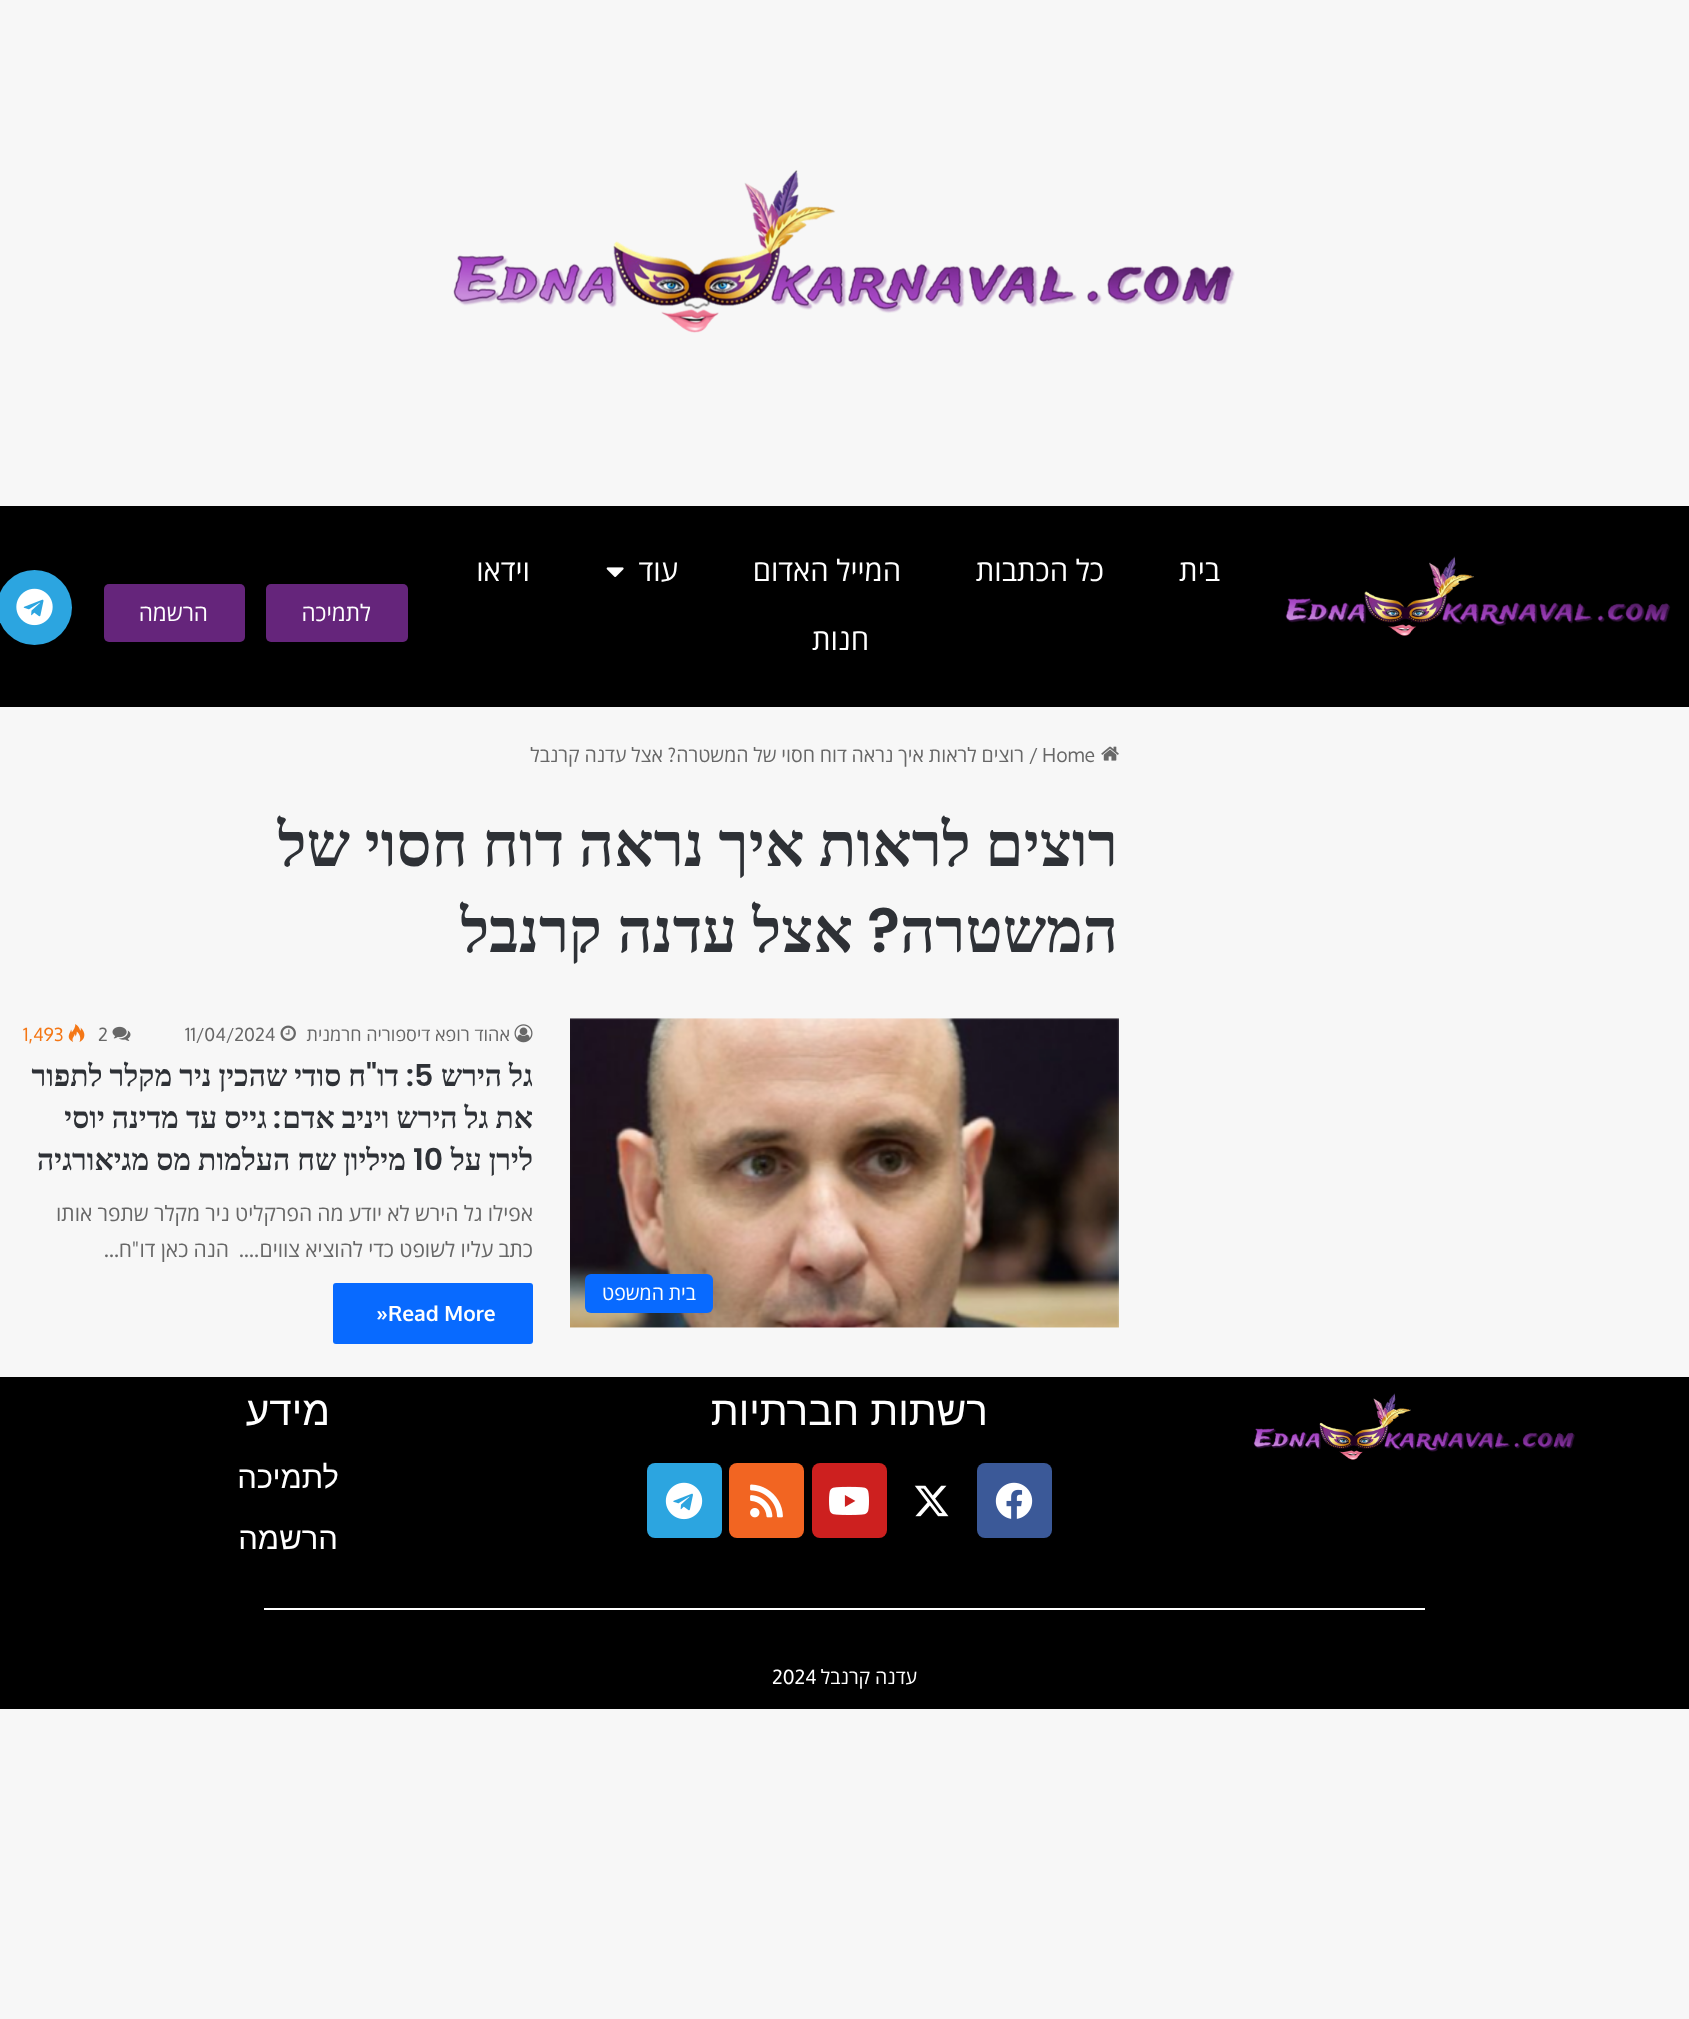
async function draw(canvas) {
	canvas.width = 1689;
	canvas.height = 2019;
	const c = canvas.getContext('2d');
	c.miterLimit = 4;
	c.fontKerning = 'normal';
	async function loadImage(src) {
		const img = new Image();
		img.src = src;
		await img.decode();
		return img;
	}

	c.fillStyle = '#f7f7f7';
	c.fillRect(0, 0, 1689, 2019);
	c.drawImage(await loadImage('img1.png'), 453, 170, 782, 163);
	c.fillStyle = '#000';
	c.fillRect(0, 506, 1689, 201);
	c.drawImage(await loadImage('img2.png'), 1285, 556, 386, 80);
	c.direction = 'rtl';
	c.font = '29.25px Open Sans';
	c.fillStyle = '#fff';
	for (const [text, x, y] of [
		['בית', 1220, 581],
		['כל הכתבות', 1104, 581],
		['המייל האדום', 901, 581],
		['עוד', 678, 581],
	]) {
		c.fillText(text, x, y);
	}
	c.drawImage(await loadImage('img3.png'), 606, 567, 18, 10);
	c.fillText('וידאו', 530, 581);
	c.fillText('חנות', 869, 650);
	c.fillStyle = '#65257b';
	c.beginPath();
	c.roundRect(266, 584, 142, 58, 5);
	c.fill();
	c.font = '22.5px Open Sans';
	c.fillStyle = '#fff';
	c.fillText('לתמיכה', 371, 621);
	c.fillStyle = '#65257b';
	c.beginPath();
	c.roundRect(104, 584, 141, 58, 5);
	c.fill();
	c.fillStyle = '#fff';
	c.fillText('הרשמה', 208, 621);
	c.fillStyle = '#2ca5e0';
	c.beginPath();
	c.arc(34.5, 607.5, 37.5, 0, 2 * Math.PI);
	c.fill();
	c.drawImage(await loadImage('img4.png'), 16, 588, 37, 38);
	c.drawImage(await loadImage('img5.png'), 1101, 746, 18, 15);
	c.direction = 'ltr';
	c.font = '19.5px Oxygen';
	c.fillStyle = '#676767';
	c.fillText('Home', 1042, 762);
	c.fillText('/', 1029, 762);
	c.wordSpacing = '-0.25px';
	c.direction = 'rtl';
	c.font = '19.5px Open Sans';
	c.fillText('רוצים לראות איך נראה דוח חסוי של המשטרה', 1024, 762);
	c.wordSpacing = '0px';
	c.font = '19.5px Oxygen';
	c.fillText('?', 676, 762);
	c.wordSpacing = '-0.25px';
	c.font = '19.5px Open Sans';
	c.fillText('אצל עדנה קרנבל', 663, 762);
	c.wordSpacing = '-0.75px';
	c.font = 'bold 61.5px Liberation Serif';
	c.fillStyle = '#2e3136';
	c.fillText('רוצים לראות איך נראה דוח חסוי של', 1118, 866);
	c.wordSpacing = '0px';
	c.fillText('המשטרה', 1118, 952);
	c.font = '600 61.5px Poppins';
	c.fillText('?', 900, 952);
	c.font = 'bold 61.5px Liberation Serif';
	c.fillText('אצל עדנה קרנבל', 853, 952);
	c.drawImage(await loadImage('img6.png'), 570, 1018, 549, 310);
	c.fillStyle = '#086aff';
	c.beginPath();
	c.roundRect(585, 1274, 128, 39, 6);
	c.fill();
	c.wordSpacing = '-0.25px';
	c.font = '19.5px Open Sans';
	c.fillStyle = '#fff';
	c.fillText('בית המשפט', 696, 1300);
	c.drawImage(await loadImage('img7.png'), 514, 1024, 19, 19);
	c.wordSpacing = '0px';
	c.font = '18px Open Sans';
	c.fillStyle = '#676767';
	c.fillText('אהוד רופא דיספוריה חרמנית', 510, 1041);
	c.drawImage(await loadImage('img8.png'), 280, 1025, 16, 16);
	c.direction = 'ltr';
	c.font = '18px Oxygen';
	c.fillText('11/04/2024', 185, 1041);
	c.drawImage(await loadImage('img9.png'), 112, 1026, 19, 15);
	c.fillText('2', 98, 1041);
	c.drawImage(await loadImage('img10.png'), 68, 1024, 17, 18);
	c.fillStyle = '#f47614';
	c.fillText('1,493', 23, 1041);
	c.wordSpacing = '-0.5px';
	c.direction = 'rtl';
	c.font = 'bold 30px Liberation Serif';
	c.fillStyle = '#2e3136';
	c.fillText('גל הירש', 533, 1086);
	c.wordSpacing = '0px';
	c.direction = 'ltr';
	c.font = '600 30px Poppins';
	c.fillText('5', 414, 1086);
	c.direction = 'rtl';
	c.fillText(':', 414, 1086);
	c.font = 'bold 30px Liberation Serif';
	c.fillText('דו', 399, 1086);
	c.font = '600 30px Poppins';
	c.fillText('"', 377, 1086);
	c.wordSpacing = '-0.5px';
	c.font = 'bold 30px Liberation Serif';
	c.fillText('ח סודי שהכין ניר מקלר לתפור', 366, 1086);
	c.fillText('את גל הירש ויניב אדם', 533, 1128);
	c.wordSpacing = '0px';
	c.font = '600 30px Poppins';
	c.fillText(':', 281, 1128);
	c.wordSpacing = '-0.5px';
	c.font = 'bold 30px Liberation Serif';
	c.fillText('גייס עד מדינה יוסי', 267, 1128);
	c.fillText('לירן על', 533, 1170);
	c.wordSpacing = '0px';
	c.direction = 'ltr';
	c.font = '600 30px Poppins';
	c.fillText('10', 413, 1170);
	c.wordSpacing = '-0.5px';
	c.direction = 'rtl';
	c.font = 'bold 30px Liberation Serif';
	c.fillText('מיליון שח העלמות מס מגיאורגיה', 406, 1170);
	c.wordSpacing = '-0.25px';
	c.font = '21px Open Sans';
	c.fillStyle = '#676767';
	c.fillText('אפילו גל הירש לא יודע מה הפרקליט ניר מקלר שתפר אותו', 533, 1221);
	c.fillText('כתב עליו לשופט כדי להוציא צווים', 533, 1257);
	c.wordSpacing = '0px';
	c.font = '21px Oxygen';
	c.fillText('….', 259, 1257);
	c.wordSpacing = '-0.25px';
	c.font = '21px Open Sans';
	c.fillText('הנה כאן דו', 229, 1257);
	c.wordSpacing = '0px';
	c.font = '21px Oxygen';
	c.fillText('"', 139, 1257);
	c.font = '21px Open Sans';
	c.fillText('ח', 132, 1257);
	c.font = '21px Oxygen';
	c.fillText('…', 119, 1257);
	c.fillStyle = '#086aff';
	c.beginPath();
	c.roundRect(333, 1283, 200, 61, 3);
	c.fill();
	c.direction = 'ltr';
	c.font = 'bold 21px Oxygen';
	c.fillStyle = '#fff';
	c.fillText('»Read More', 376, 1321);
	c.fillStyle = '#000';
	c.fillRect(0, 1377, 1689, 332);
	c.drawImage(await loadImage('img11.png'), 1253, 1393, 322, 67);
	c.direction = 'rtl';
	c.font = '40.5px Liberation Sans';
	c.fillStyle = '#fff';
	c.fillText('רשתות חברתיות', 988, 1425);
	c.fillStyle = '#3b5998';
	c.beginPath();
	c.roundRect(977, 1463, 75, 75, 8);
	c.fill();
	c.drawImage(await loadImage('img12.png'), 995, 1482, 38, 37);
	c.drawImage(await loadImage('img13.png'), 914, 1485, 35, 32);
	c.fillStyle = '#cd201f';
	c.beginPath();
	c.roundRect(812, 1463, 75, 75, 8);
	c.fill();
	c.drawImage(await loadImage('img14.png'), 829, 1486, 40, 29);
	c.fillStyle = '#f26522';
	c.beginPath();
	c.roundRect(729, 1463, 75, 75, 8);
	c.fill();
	c.drawImage(await loadImage('img15.png'), 750, 1484, 33, 34);
	c.fillStyle = '#2ca5e0';
	c.beginPath();
	c.roundRect(647, 1463, 75, 75, 8);
	c.fill();
	c.drawImage(await loadImage('img16.png'), 665, 1482, 38, 38);
	c.fillStyle = '#fff';
	c.fillText('מידע', 330, 1425);
	c.font = '31px Liberation Sans';
	c.fillText('לתמיכה', 339, 1488);
	c.fillText('הרשמה', 338, 1549);
	c.fillRect(264, 1608, 1161, 2);
	c.wordSpacing = '-0.25px';
	c.font = '19.5px Open Sans';
	c.fillText('עדנה קרנבל', 917, 1684);
	c.wordSpacing = '0px';
	c.direction = 'ltr';
	c.font = '19.5px Oxygen';
	c.fillText('2024', 772, 1684);
}

draw(document.querySelector('canvas'));
